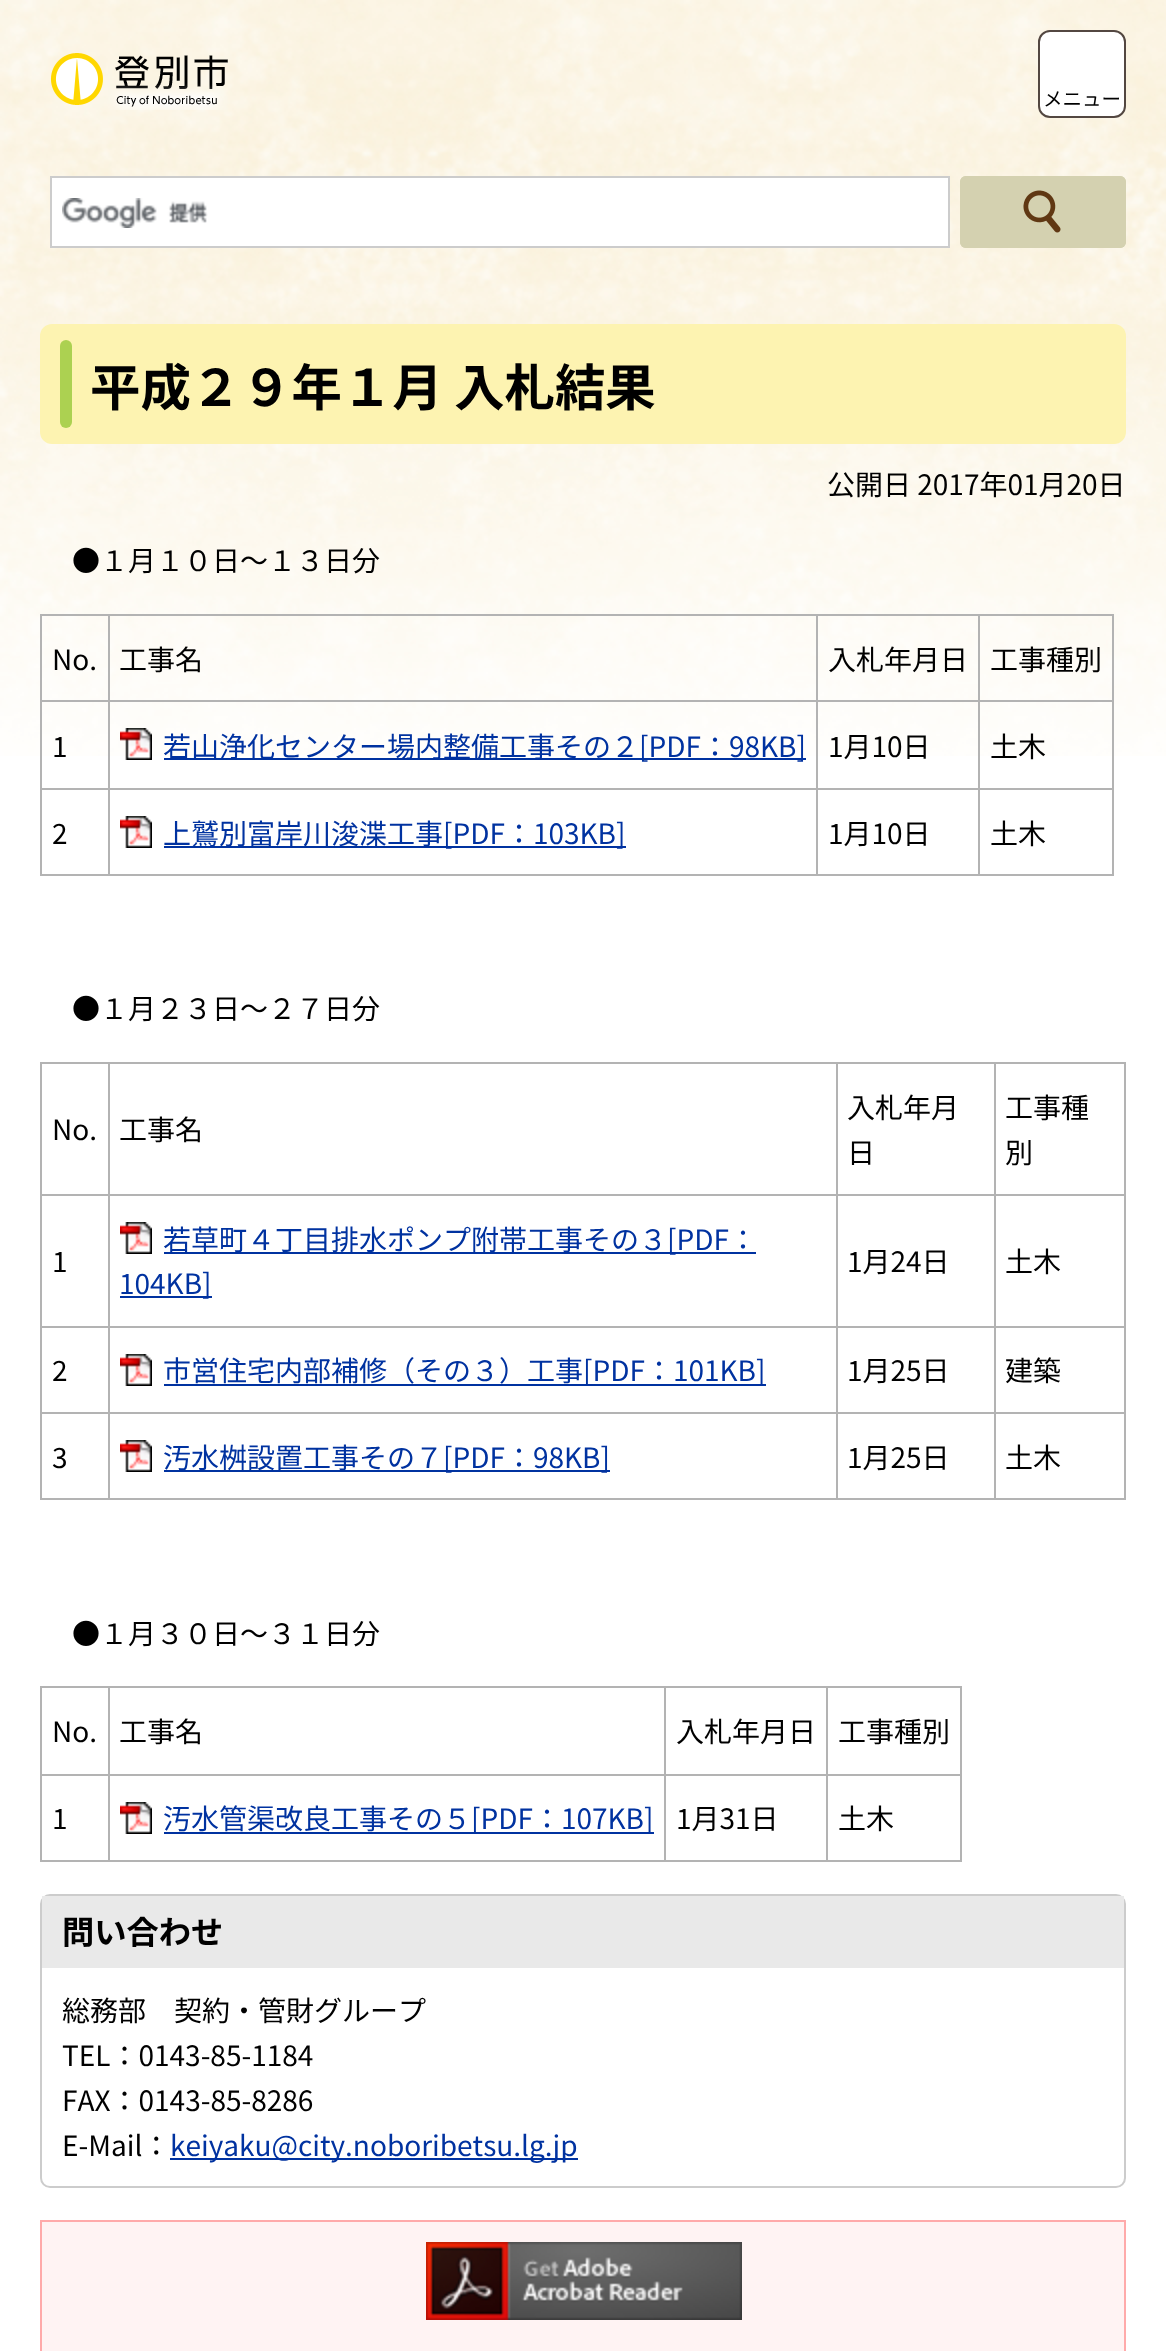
async function draw(canvas) {
	canvas.width = 1166;
	canvas.height = 2351;
	const c = canvas.getContext('2d');
	c.miterLimit = 4;
	c.fontKerning = 'none';
	async function loadImage(src) {
		const img = new Image();
		img.src = src;
		await img.decode();
		return img;
	}

	c.fillStyle = '#fff';
	c.fillRect(0, 0, 1166, 2351);
	c.drawImage(await loadImage('img1.png'), 0, 0, 1166, 756);
	c.drawImage(await loadImage('img2.png'), 51, 53, 177, 57);
	c.fillRect(52, 178, 896, 68);
	c.drawImage(await loadImage('img3.png'), 62, 198, 146, 30);
	c.strokeStyle = '#ccc';
	c.lineWidth = 2;
	c.strokeRect(51, 177, 898, 70);
	c.fillStyle = '#d4d1b0';
	c.beginPath();
	c.roundRect(960, 176, 166, 72, 6);
	c.fill();
	c.drawImage(await loadImage('img4.png'), 1023, 190, 38, 43);
	c.beginPath();
	c.roundRect(961, 177, 164, 70, 5);
	c.strokeStyle = '#d4d1b0';
	c.stroke();
	c.fillStyle = '#fff';
	c.beginPath();
	c.roundRect(1039, 31, 86, 86, 11);
	c.fill();
	c.strokeStyle = '#534741';
	c.stroke();
	c.font = '19.5px Noto Sans JP';
	c.fillStyle = '#000';
	c.fillText('メニュー', 1043, 106);
	c.fillStyle = '#fdf3b1';
	c.beginPath();
	c.roundRect(40, 324, 1086, 120, 12);
	c.fill();
	c.fillStyle = '#acd151';
	c.beginPath();
	c.roundRect(60, 340, 12, 88, 6);
	c.fill();
	c.font = 'bold 50.4px Noto Sans JP';
	c.fillStyle = '#000';
	c.fillText('平成２９年１月 入札結果', 90, 406);
	c.font = '28px Noto Sans JP';
	c.fillText('公開日 2017年01月20日', 827, 495);
	c.fillText('●１月１０日～１３日分', 72, 571);
	for (const [x, y, w, h, color] of [
		[40, 614, 1074, 2, '#b3b3b3'],
		[1112, 614, 2, 262, '#b3b3b3'],
		[40, 874, 1074, 2, '#b3b3b3'],
		[40, 614, 2, 262, '#b3b3b3'],
	]) {
		c.fillStyle = color;
		c.fillRect(x, y, w, h);
	}
	c.fillStyle = '#000';
	c.fillText('No.', 52, 670);
	for (const [x, y, w, h, color] of [
		[978, 700, 136, 2, '#b3b3b3'],
		[978, 788, 136, 2, '#b3b3b3'],
		[978, 788, 2, 88, '#b3b3b3'],
		[816, 788, 164, 2, '#b3b3b3'],
		[978, 700, 2, 90, '#b3b3b3'],
		[816, 700, 164, 2, '#b3b3b3'],
		[816, 788, 2, 88, '#b3b3b3'],
		[108, 788, 710, 2, '#b3b3b3'],
		[816, 700, 2, 90, '#b3b3b3'],
		[108, 700, 710, 2, '#b3b3b3'],
		[108, 788, 2, 88, '#b3b3b3'],
		[40, 788, 70, 2, '#b3b3b3'],
		[108, 700, 2, 90, '#b3b3b3'],
		[40, 700, 70, 2, '#b3b3b3'],
		[108, 614, 2, 88, '#b3b3b3'],
	]) {
		c.fillStyle = color;
		c.fillRect(x, y, w, h);
	}
	c.fillStyle = '#000';
	c.fillText('工事名', 119, 670);
	c.fillStyle = '#b3b3b3';
	c.fillRect(816, 614, 2, 88);
	c.fillStyle = '#000';
	c.fillText('入札年月日', 828, 670);
	c.fillStyle = '#b3b3b3';
	c.fillRect(978, 614, 2, 88);
	c.fillStyle = '#000';
	c.fillText('工事種別', 990, 670);
	c.fillText('1', 52, 757);
	c.drawImage(await loadImage('img5.png'), 120, 728, 32, 32);
	c.fillStyle = '#0032a0';
	c.fillRect(164, 758, 642, 2);
	c.fillText('若山浄化センター場内整備工事その２[PDF：98KB]', 163, 757);
	c.fillStyle = '#000';
	for (const [text, x, y] of [
		['1月10日', 828, 757],
		['土木', 990, 757],
		['2', 52, 844],
	]) {
		c.fillText(text, x, y);
	}
	c.drawImage(await loadImage('img6.png'), 120, 816, 32, 32);
	c.fillStyle = '#0032a0';
	c.fillRect(164, 846, 462, 2);
	c.fillText('上鷲別富岸川浚渫工事[PDF：103KB]', 163, 844);
	c.fillStyle = '#000';
	for (const [text, x, y] of [
		['1月10日', 828, 844],
		['土木', 990, 844],
		['●１月２３日～２７日分', 72, 1019],
	]) {
		c.fillText(text, x, y);
	}
	for (const [x, y, w, h, color] of [
		[40, 1062, 1086, 2, '#b3b3b3'],
		[1124, 1062, 2, 438, '#b3b3b3'],
		[40, 1498, 1086, 2, '#b3b3b3'],
		[40, 1062, 2, 438, '#b3b3b3'],
	]) {
		c.fillStyle = color;
		c.fillRect(x, y, w, h);
	}
	c.fillStyle = '#000';
	c.fillText('No.', 52, 1140);
	for (const [x, y, w, h, color] of [
		[994, 1194, 132, 2, '#b3b3b3'],
		[994, 1326, 132, 2, '#b3b3b3'],
		[994, 1412, 132, 2, '#b3b3b3'],
		[994, 1412, 2, 88, '#b3b3b3'],
		[836, 1412, 160, 2, '#b3b3b3'],
		[994, 1326, 2, 88, '#b3b3b3'],
		[836, 1326, 160, 2, '#b3b3b3'],
		[994, 1194, 2, 134, '#b3b3b3'],
		[836, 1194, 160, 2, '#b3b3b3'],
		[836, 1412, 2, 88, '#b3b3b3'],
		[108, 1412, 730, 2, '#b3b3b3'],
		[836, 1326, 2, 88, '#b3b3b3'],
		[108, 1326, 730, 2, '#b3b3b3'],
		[836, 1194, 2, 134, '#b3b3b3'],
		[108, 1194, 730, 2, '#b3b3b3'],
		[108, 1412, 2, 88, '#b3b3b3'],
		[40, 1412, 70, 2, '#b3b3b3'],
		[108, 1326, 2, 88, '#b3b3b3'],
		[40, 1326, 70, 2, '#b3b3b3'],
		[108, 1194, 2, 134, '#b3b3b3'],
		[40, 1194, 70, 2, '#b3b3b3'],
		[108, 1062, 2, 134, '#b3b3b3'],
	]) {
		c.fillStyle = color;
		c.fillRect(x, y, w, h);
	}
	c.fillStyle = '#000';
	c.fillText('工事名', 119, 1140);
	c.fillStyle = '#b3b3b3';
	c.fillRect(836, 1062, 2, 134);
	c.fillStyle = '#000';
	c.fillText('入札年月', 847, 1118);
	c.fillText('日', 847, 1163);
	c.fillStyle = '#b3b3b3';
	c.fillRect(994, 1062, 2, 134);
	c.fillStyle = '#000';
	for (const [text, x, y] of [
		['工事種', 1005, 1118],
		['別', 1005, 1163],
		['1', 52, 1272],
	]) {
		c.fillText(text, x, y);
	}
	c.drawImage(await loadImage('img6.png'), 120, 1222, 32, 32);
	c.fillStyle = '#0032a0';
	c.fillRect(164, 1252, 592, 2);
	c.fillText('若草町４丁目排水ポンプ附帯工事その３[PDF：', 163, 1250);
	c.fillRect(120, 1296, 92, 2);
	c.fillText('104KB]', 119, 1294);
	c.fillStyle = '#000';
	for (const [text, x, y] of [
		['1月24日', 847, 1272],
		['土木', 1005, 1272],
		['2', 52, 1381],
	]) {
		c.fillText(text, x, y);
	}
	c.drawImage(await loadImage('img6.png'), 120, 1354, 32, 32);
	c.fillStyle = '#0032a0';
	c.fillRect(164, 1384, 602, 2);
	c.fillText('市営住宅内部補修（その３）工事[PDF：101KB]', 163, 1381);
	c.fillStyle = '#000';
	for (const [text, x, y] of [
		['1月25日', 847, 1381],
		['建築', 1005, 1381],
		['3', 52, 1468],
	]) {
		c.fillText(text, x, y);
	}
	c.drawImage(await loadImage('img6.png'), 120, 1440, 32, 32);
	c.fillStyle = '#0032a0';
	c.fillRect(164, 1470, 446, 2);
	c.fillText('汚水桝設置工事その７[PDF：98KB]', 163, 1468);
	c.fillStyle = '#000';
	for (const [text, x, y] of [
		['1月25日', 847, 1468],
		['土木', 1005, 1468],
		['●１月３０日～３１日分', 72, 1644],
	]) {
		c.fillText(text, x, y);
	}
	for (const [x, y, w, h, color] of [
		[40, 1686, 922, 2, '#b3b3b3'],
		[960, 1686, 2, 176, '#b3b3b3'],
		[40, 1860, 922, 2, '#b3b3b3'],
		[40, 1686, 2, 176, '#b3b3b3'],
	]) {
		c.fillStyle = color;
		c.fillRect(x, y, w, h);
	}
	c.fillStyle = '#000';
	c.fillText('No.', 52, 1742);
	for (const [x, y, w, h, color] of [
		[826, 1774, 136, 2, '#b3b3b3'],
		[826, 1774, 2, 88, '#b3b3b3'],
		[664, 1774, 164, 2, '#b3b3b3'],
		[664, 1774, 2, 88, '#b3b3b3'],
		[108, 1774, 558, 2, '#b3b3b3'],
		[108, 1774, 2, 88, '#b3b3b3'],
		[40, 1774, 70, 2, '#b3b3b3'],
		[108, 1686, 2, 90, '#b3b3b3'],
	]) {
		c.fillStyle = color;
		c.fillRect(x, y, w, h);
	}
	c.fillStyle = '#000';
	c.fillText('工事名', 119, 1742);
	c.fillStyle = '#b3b3b3';
	c.fillRect(664, 1686, 2, 90);
	c.fillStyle = '#000';
	c.fillText('入札年月日', 676, 1742);
	c.fillStyle = '#b3b3b3';
	c.fillRect(826, 1686, 2, 90);
	c.fillStyle = '#000';
	c.fillText('工事種別', 838, 1742);
	c.fillText('1', 52, 1829);
	c.drawImage(await loadImage('img6.png'), 120, 1802, 32, 32);
	c.fillStyle = '#0032a0';
	c.fillRect(164, 1832, 490, 2);
	c.fillText('汚水管渠改良工事その５[PDF：107KB]', 163, 1829);
	c.fillStyle = '#000';
	c.fillText('1月31日', 676, 1829);
	c.fillText('土木', 838, 1829);
	c.beginPath();
	c.roundRect(41, 1895, 1084, 292, 9);
	c.strokeStyle = '#ccc';
	c.stroke();
	c.fillStyle = '#e9e9e9';
	c.fillRect(42, 1896, 1082, 72);
	c.font = 'bold 32.25px Noto Sans JP';
	c.fillStyle = '#000';
	c.fillText('問い合わせ', 62, 1944);
	c.font = '28px Noto Sans JP';
	for (const [text, x, y] of [
		['総務部　契約・管財グループ', 62, 2021],
		['TEL：0143-85-1184', 62, 2066],
		['FAX：0143-85-8286', 62, 2111],
		['E-Mail：', 62, 2156],
	]) {
		c.fillText(text, x, y);
	}
	c.fillStyle = '#0032a0';
	c.fillRect(170, 2158, 408, 2);
	c.fillText('keiyaku@city.noboribetsu.lg.jp', 170, 2156);
	c.fillStyle = '#fff3f3';
	c.fillRect(42, 2222, 1082, 129);
	c.drawImage(await loadImage('img7.png'), 426, 2242, 316, 78);
	c.strokeStyle = '#faa';
	c.strokeRect(41, 2221, 1084, 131);
}

draw(document.querySelector('canvas'));
